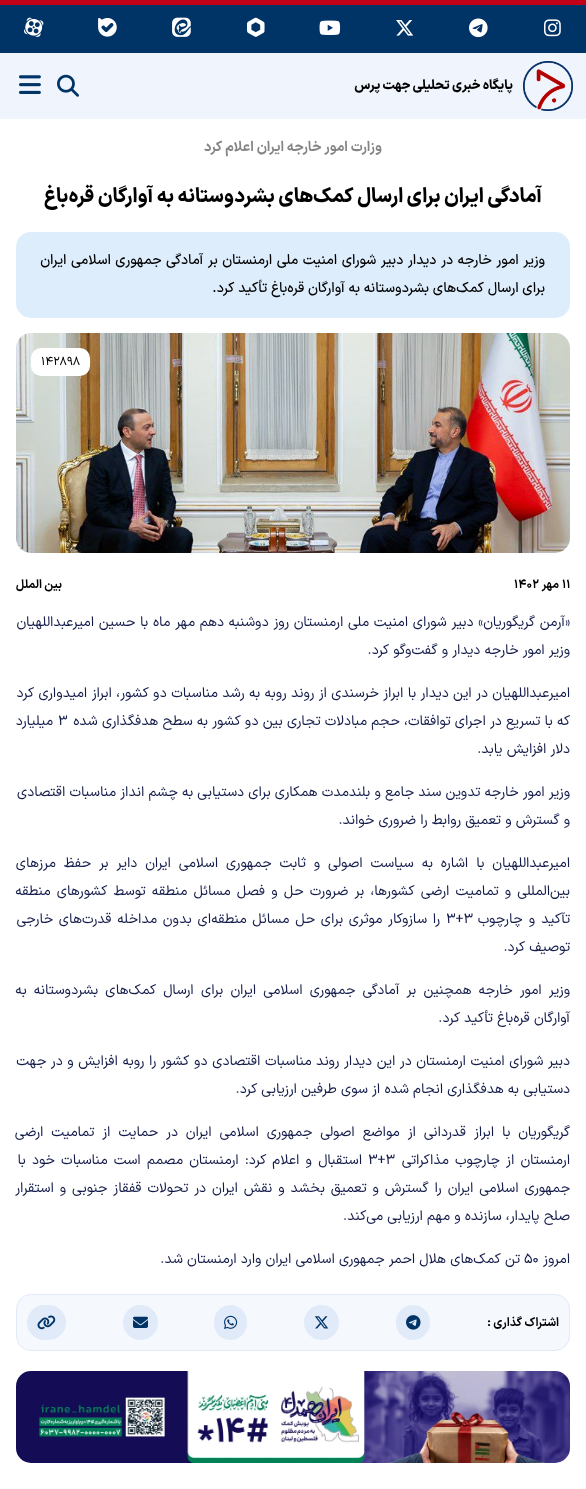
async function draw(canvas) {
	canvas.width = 586;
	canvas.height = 1489;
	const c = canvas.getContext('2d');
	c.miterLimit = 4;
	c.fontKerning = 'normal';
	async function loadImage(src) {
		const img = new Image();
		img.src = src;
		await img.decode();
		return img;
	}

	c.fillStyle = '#fff';
	c.fillRect(0, 0, 586, 1489);
	c.fillStyle = '#c20017';
	c.fillRect(0, 0, 586, 5);
	c.fillStyle = '#036';
	c.fillRect(0, 5, 586, 48);
	c.drawImage(await loadImage('img1.png'), 544, 19, 17, 18);
	c.drawImage(await loadImage('img2.png'), 469, 18, 19, 20);
	c.drawImage(await loadImage('img3.png'), 396, 20, 18, 16);
	c.drawImage(await loadImage('img4.png'), 319, 20, 22, 15);
	c.drawImage(await loadImage('img5.png'), 247, 17, 18, 20);
	c.drawImage(await loadImage('img6.png'), 172, 17, 19, 20);
	c.drawImage(await loadImage('img7.png'), 98, 18, 19, 19);
	c.drawImage(await loadImage('img8.png'), 24, 17, 20, 20);
	c.fillStyle = '#f0f4fc';
	c.fillRect(0, 53, 586, 66);
	c.drawImage(await loadImage('img9.png'), 523, 61, 50, 50);
	c.direction = 'rtl';
	c.font = '800 13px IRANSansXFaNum';
	c.fillStyle = '#000';
	c.fillText('پایگاه خبری تحلیلی جهت پرس', 513, 89);
	c.drawImage(await loadImage('img10.png'), 57, 74, 22, 23);
	c.drawImage(await loadImage('img11.png'), 19, 75, 22, 19);
	c.font = 'bold 14px IRANSansXFaNum';
	c.fillStyle = '#858585';
	c.fillText('وزارت امور خارجه ایران اعلام کرد', 382, 151);
	c.font = '800 20px IRANSansXFaNum';
	c.fillStyle = '#000';
	c.fillText('آمادگی ایران برای ارسال کمک‌های بشردوستانه به آوارگان ‌قره‌باغ', 542, 202);
	c.fillStyle = '#ddedfc';
	c.beginPath();
	c.roundRect(16, 232, 554, 86, 15);
	c.fill();
	c.wordSpacing = '0.75px';
	c.font = '500 14px IRANSansXFaNum';
	c.fillStyle = '#000';
	c.fillText('وزیر امور خارجه در دیدار دبیر شورای امنیت ملی ارمنستان بر آمادگی جمهوری اسلامی ایران', 545, 264);
	c.wordSpacing = '0px';
	c.fillText('برای ارسال کمک‌های بشردوستانه به آوارگان قره‌باغ تأکید کرد.', 545, 292);
	c.drawImage(await loadImage('img12.png'), 16, 333, 554, 220);
	c.fillStyle = '#fff';
	c.beginPath();
	c.roundRect(31, 348, 59, 28, 10);
	c.fill();
	c.direction = 'ltr';
	c.font = '12px IRANSansXFaNum';
	c.fillStyle = '#000';
	c.fillText('142898', 41, 365);
	c.font = 'bold 12px IRANSansXFaNum';
	c.fillText('11', 562, 588);
	c.direction = 'rtl';
	c.fillText('مهر', 559, 588);
	c.direction = 'ltr';
	c.fillText('1402', 514, 588);
	c.direction = 'rtl';
	c.fillText('بین الملل', 62, 588);
	c.wordSpacing = '0.5px';
	c.font = '14px IRANSansXFaNum';
	c.fillStyle = '#121a49';
	c.fillText('«آرمن گریگوریان» دبیر شورای امنیت ملی ارمنستان روز دوشنبه دهم مهر ماه با حسین امیرعبداللهیان', 570, 626);
	c.wordSpacing = '0px';
	c.fillText('وزیر امور خارجه دیدار و گفت‌وگو کرد.', 570, 654);
	c.wordSpacing = '0.25px';
	c.fillText('امیرعبداللهیان در این دیدار با ابراز خرسندی از روند روبه به رشد مناسبات دو کشور، ابراز امیدواری کرد', 570, 697);
	c.wordSpacing = '0px';
	c.fillText('که با تسریع در اجرای توافقات، حجم مبادلات تجاری بین دو کشور به سطح هدفگذاری شده', 570, 725);
	c.direction = 'ltr';
	c.fillText('۳', 58, 725);
	c.direction = 'rtl';
	for (const [text, x, y] of [
		['میلیارد', 53, 725],
		['دلار افزایش یابد.', 570, 753],
		['وزیر امور خارجه تدوین سند جامع و بلندمدت همکاری برای دستیابی به چشم انداز مناسبات اقتصادی', 570, 796],
		['و گسترش و تعمیق روابط را ضروری خواند.', 570, 824],
	]) {
		c.fillText(text, x, y);
	}
	c.wordSpacing = '3.75px';
	c.fillText('امیرعبداللهیان با اشاره به سیاست اصولی و ثابت جمهوری اسلامی ایران دایر بر حفظ مرزهای', 570, 867);
	c.wordSpacing = '2px';
	c.fillText('بین‌المللی و تمامیت ارضی کشورها، بر ضرورت حل و فصل مسائل منطقه توسط کشورهای منطقه', 570, 895);
	c.fillText('تآکید و چارچوب', 570, 923);
	c.wordSpacing = '0px';
	c.direction = 'ltr';
	c.fillText('۳+۳', 446, 923);
	c.wordSpacing = '1.6px';
	c.direction = 'rtl';
	c.fillText('را سازوکار موثری برای حل مسائل منطقه‌ای بدون مداخله قدرت‌های خارجی', 440, 923);
	c.wordSpacing = '0px';
	c.fillText('توصیف کرد.', 570, 951);
	c.wordSpacing = '3px';
	c.fillText('وزیر امور خارجه همچنین بر آمادگی جمهوری اسلامی ایران برای ارسال کمک‌های بشردوستانه به', 570, 994);
	c.wordSpacing = '0px';
	c.fillText('آوارگان قره‌باغ تأکید کرد.', 570, 1022);
	c.wordSpacing = '0.4px';
	c.fillText('دبیر شورای امنیت ارمنستان در این دیدار روند مناسبات اقتصادی دو کشور را روبه افزایش و در جهت', 570, 1065);
	c.wordSpacing = '0px';
	c.fillText('دستیابی به هدفگذاری انجام شده از سوی طرفین ارزیابی کرد.', 570, 1093);
	c.wordSpacing = '3.75px';
	c.fillText('گریگوریان با ابراز قدردانی از مواضع اصولی جمهوری اسلامی ایران در حمایت از تمامیت ارضی', 570, 1136);
	c.wordSpacing = '2px';
	c.fillText('ارمنستان از چارچوب مذاکراتی', 570, 1164);
	c.wordSpacing = '0px';
	c.direction = 'ltr';
	c.fillText('۳+۳', 368, 1164);
	c.wordSpacing = '2px';
	c.direction = 'rtl';
	c.fillText('استقبال و اعلام کرد: ارمنستان مصمم است مناسبات خود با', 362, 1164);
	c.wordSpacing = '1.75px';
	c.fillText('جمهوری اسلامی ایران را گسترش و تعمیق بخشد و نقش ایران در تحولات قفقاز جنوبی و استقرار', 570, 1192);
	c.wordSpacing = '0px';
	c.fillText('صلح پایدار، سازنده و مهم ارزیابی می‌کند.', 570, 1220);
	c.fillText('امروز', 570, 1263);
	c.direction = 'ltr';
	c.fillText('۵۰', 524, 1263);
	c.direction = 'rtl';
	c.fillText('تن کمک‌های هلال احمر جمهوری اسلامی ایران وارد ارمنستان شد.', 520, 1263);
	c.fillStyle = '#f5f8fd';
	c.beginPath();
	c.roundRect(16.5, 1294.5, 553, 56, 14.5);
	c.fill();
	c.strokeStyle = '#e1eaf9';
	c.stroke();
	c.font = 'bold 12px IRANSansXFaNum';
	c.fillStyle = '#000';
	c.fillText('اشتراک گذاری :', 559, 1326);
	c.fillStyle = '#e1eaf9';
	c.beginPath();
	c.roundRect(396, 1305, 34, 35, 17);
	c.fill();
	c.drawImage(await loadImage('img13.png'), 406, 1315, 15, 15);
	c.beginPath();
	c.arc(321.5, 1322.5, 17.5, 0, 2 * Math.PI);
	c.fill();
	c.drawImage(await loadImage('img14.png'), 314, 1316, 15, 13);
	c.beginPath();
	c.roundRect(214, 1305, 33, 35, 16.5);
	c.fill();
	c.drawImage(await loadImage('img15.png'), 224, 1315, 14, 14);
	c.beginPath();
	c.arc(140.5, 1322.5, 17.5, 0, 2 * Math.PI);
	c.fill();
	c.drawImage(await loadImage('img16.png'), 133, 1316, 15, 12);
	c.beginPath();
	c.roundRect(27, 1305, 39, 35, 17.5);
	c.fill();
	c.drawImage(await loadImage('img17.png'), 37, 1315, 19, 15);
	c.drawImage(await loadImage('img18.png'), 16, 1371, 554, 92);
}

draw(document.querySelector('canvas'));
